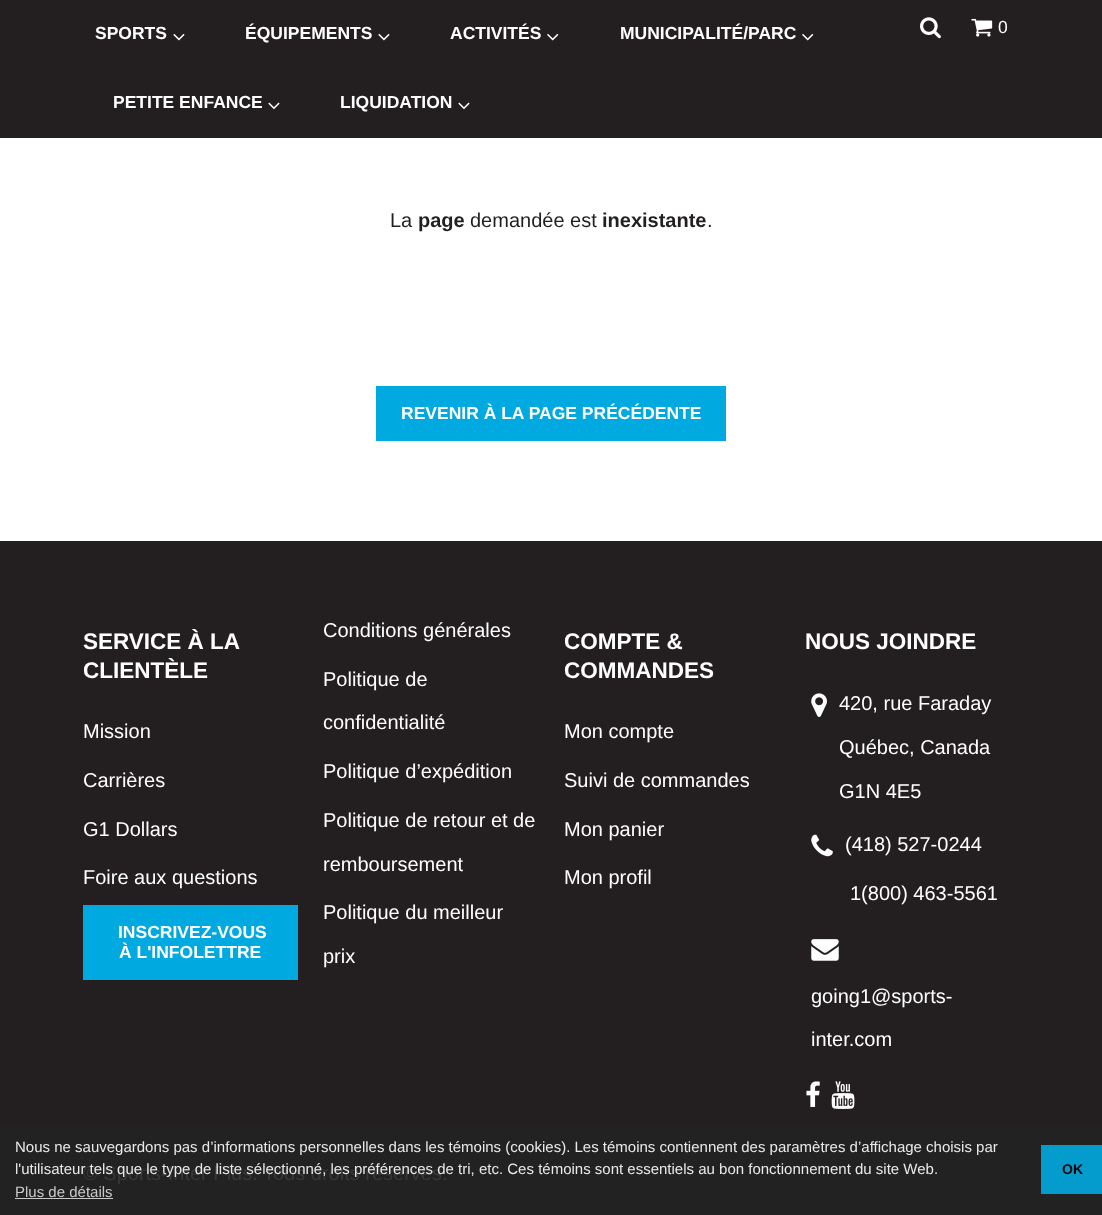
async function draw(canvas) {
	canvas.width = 1102;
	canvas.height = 1215;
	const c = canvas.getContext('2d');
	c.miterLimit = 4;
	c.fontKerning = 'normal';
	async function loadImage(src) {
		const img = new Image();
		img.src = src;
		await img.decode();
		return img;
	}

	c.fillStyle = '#fff';
	c.fillRect(0, 0, 1102, 1215);
	c.fillStyle = '#231f20';
	c.fillRect(0, 0, 1102, 138);
	c.font = 'bold 17.5px Liberation Sans';
	c.fillStyle = '#fff';
	c.fillText('SPORTS', 95, 39);
	c.drawImage(await loadImage('img1.png'), 173, 33, 12, 8);
	c.fillText('ÉQUIPEMENTS', 245, 39);
	c.drawImage(await loadImage('img1.png'), 378, 33, 12, 8);
	c.fillText('ACTIVITÉS', 450, 39);
	c.drawImage(await loadImage('img2.png'), 547, 33, 12, 8);
	c.fillText('MUNICIPALITÉ/PARC', 620, 39);
	c.drawImage(await loadImage('img2.png'), 802, 33, 12, 8);
	c.fillText('PETITE ENFANCE', 113, 108);
	c.drawImage(await loadImage('img3.png'), 268, 102, 12, 8);
	c.fillText('LIQUIDATION', 340, 108);
	c.drawImage(await loadImage('img3.png'), 458, 102, 12, 8);
	c.drawImage(await loadImage('img4.png'), 920, 17, 21, 22);
	c.drawImage(await loadImage('img5.png'), 971, 18, 22, 19);
	c.font = '17.5px Liberation Sans';
	c.fillText('0', 998, 33);
	c.font = '20px Liberation Sans';
	c.fillStyle = '#231f20';
	c.fillText('La', 390, 227);
	c.font = 'bold 20px Liberation Sans';
	c.fillText('page', 418, 227);
	c.font = '20px Liberation Sans';
	c.fillText('demandée est', 470, 227);
	c.font = 'bold 20px Liberation Sans';
	c.fillText('inexistante', 602, 227);
	c.font = '20px Liberation Sans';
	c.fillText('.', 707, 227);
	c.fillStyle = '#00a9e0';
	c.fillRect(376, 386, 350, 55);
	c.font = 'bold 17.5px Liberation Sans';
	c.fillStyle = '#fff';
	c.fillText('REVENIR À LA PAGE PRÉCÉDENTE', 401, 419);
	c.fillStyle = '#231f20';
	c.fillRect(0, 541, 1102, 583);
	c.fillStyle = '#222';
	c.fillRect(0, 1124, 1102, 91);
	c.font = 'bold 22.5px Liberation Sans';
	c.fillStyle = '#fff';
	c.fillText('SERVICE À LA', 83, 649);
	c.fillText('CLIENTÈLE', 83, 678);
	c.font = '20px Liberation Sans';
	for (const [text, x, y] of [
		['Mission', 83, 738],
		['Carrières', 83, 787],
		['G1 Dollars', 83, 836],
		['Foire aux questions', 83, 884],
	]) {
		c.fillText(text, x, y);
	}
	c.fillStyle = '#00a9e0';
	c.fillRect(83, 905, 215, 75);
	c.font = 'bold 17.5px Liberation Sans';
	c.fillStyle = '#fff';
	c.fillText('INSCRIVEZ-VOUS', 118, 938);
	c.fillText('À L\'INFOLETTRE', 119, 958);
	c.font = '20px Liberation Sans';
	for (const [text, x, y] of [
		['Conditions générales', 323, 637],
		['Politique de', 323, 686],
		['confidentialité', 323, 729],
		['Politique d’expédition', 323, 778],
		['Politique de retour et de', 323, 827],
		['remboursement', 323, 871],
		['Politique du meilleur', 323, 919],
		['prix', 323, 963],
	]) {
		c.fillText(text, x, y);
	}
	c.font = 'bold 22.5px Liberation Sans';
	c.fillText('COMPTE &', 564, 649);
	c.fillText('COMMANDES', 564, 678);
	c.font = '20px Liberation Sans';
	for (const [text, x, y] of [
		['Mon compte', 564, 738],
		['Suivi de commandes', 564, 787],
		['Mon panier', 564, 836],
		['Mon profil', 564, 884],
	]) {
		c.fillText(text, x, y);
	}
	c.font = 'bold 22.5px Liberation Sans';
	c.fillText('NOUS JOINDRE', 805, 649);
	c.drawImage(await loadImage('img6.png'), 811, 693, 16, 24);
	c.font = '20px Liberation Sans';
	for (const [text, x, y] of [
		['420, rue Faraday', 839, 710],
		['Québec, Canada', 839, 754],
		['G1N 4E5', 839, 798],
	]) {
		c.fillText(text, x, y);
	}
	c.drawImage(await loadImage('img7.png'), 811, 834, 22, 23);
	c.fillText('(418) 527-0244', 845, 851);
	c.fillText('1(800) 463-5561', 850, 900);
	c.drawImage(await loadImage('img8.png'), 811, 939, 28, 22);
	c.fillText('going1@sports-', 811, 1003);
	c.fillText('inter.com', 811, 1046);
	c.drawImage(await loadImage('img9.png'), 806, 1081, 14, 26);
	c.drawImage(await loadImage('img10.png'), 831, 1081, 24, 28);
	c.fillStyle = '#383838';
	c.fillText('© Sports-Inter Plus. Tous droits réservés.', 83, 1180);
	c.font = '15px Liberation Sans';
	c.fillStyle = '#e9e9e9';
	c.fillText('Nous ne sauvegardons pas d’informations personnelles dans les témoins (cookies). Les témoins contiennent des paramètres d’affichage choisis par', 15, 1152);
	c.fillText('l\'utilisateur tels que le type de liste sélectionné, les préférences de tri, etc. Ces témoins sont essentiels au bon fonctionnement du site Web.', 15, 1174);
	c.fillStyle = '#cbcacb';
	c.fillText('Plus de détails', 15, 1197);
	c.fillRect(15, 1198, 98, 1);
	c.fillStyle = '#049bcd';
	c.fillRect(1041, 1145, 61, 49);
	c.font = 'bold 14px Liberation Sans';
	c.fillStyle = '#040303';
	c.fillText('OK', 1062, 1174);
}

draw(document.querySelector('canvas'));
